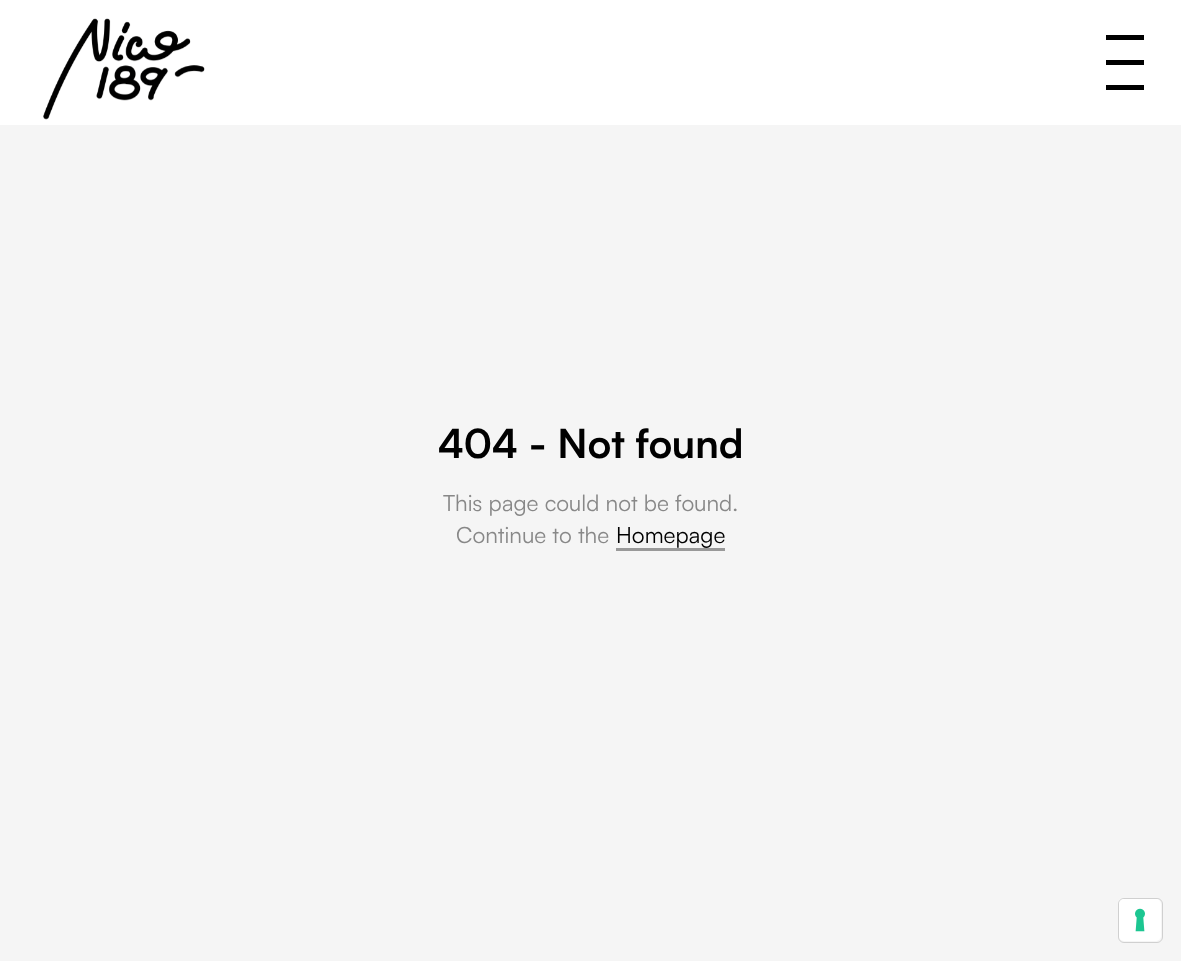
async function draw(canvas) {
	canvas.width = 1181;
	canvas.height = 961;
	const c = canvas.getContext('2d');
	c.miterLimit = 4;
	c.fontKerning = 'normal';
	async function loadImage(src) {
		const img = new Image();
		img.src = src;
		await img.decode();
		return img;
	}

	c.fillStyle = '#f5f5f5';
	c.fillRect(0, 0, 1181, 961);
	c.fillStyle = '#fff';
	c.fillRect(0, 0, 1181, 125);
	c.drawImage(await loadImage('img1.png'), 43, 18, 162, 102);
	for (const [x, y, w, h, color] of [
		[1106, 60, 38, 5, '#000'],
		[1106, 35, 38, 5, '#000'],
		[1106, 85, 38, 5, '#000'],
	]) {
		c.fillStyle = color;
		c.fillRect(x, y, w, h);
	}
	c.font = 'bold 40px Satoshi';
	c.fillText('404 - Not found', 438, 458);
	c.font = '22.5px Satoshi';
	c.fillStyle = '#888';
	c.fillText('This page could not be found.', 443, 511);
	c.fillText('Continue to the', 456, 543);
	c.fillStyle = '#000';
	c.fillText('Homepage', 616, 543);
	c.fillStyle = '#999';
	c.fillRect(616, 548, 109, 3);
	c.beginPath();
	c.roundRect(1118.5, 898.5, 44, 44, 5.5);
	c.strokeStyle = '#d0d0d0';
	c.stroke();
	c.fillStyle = '#fff';
	c.beginPath();
	c.roundRect(1119, 899, 42, 42, 5);
	c.fill();
	c.drawImage(await loadImage('img2.png'), 1135, 908, 10, 24);
}

draw(document.querySelector('canvas'));
